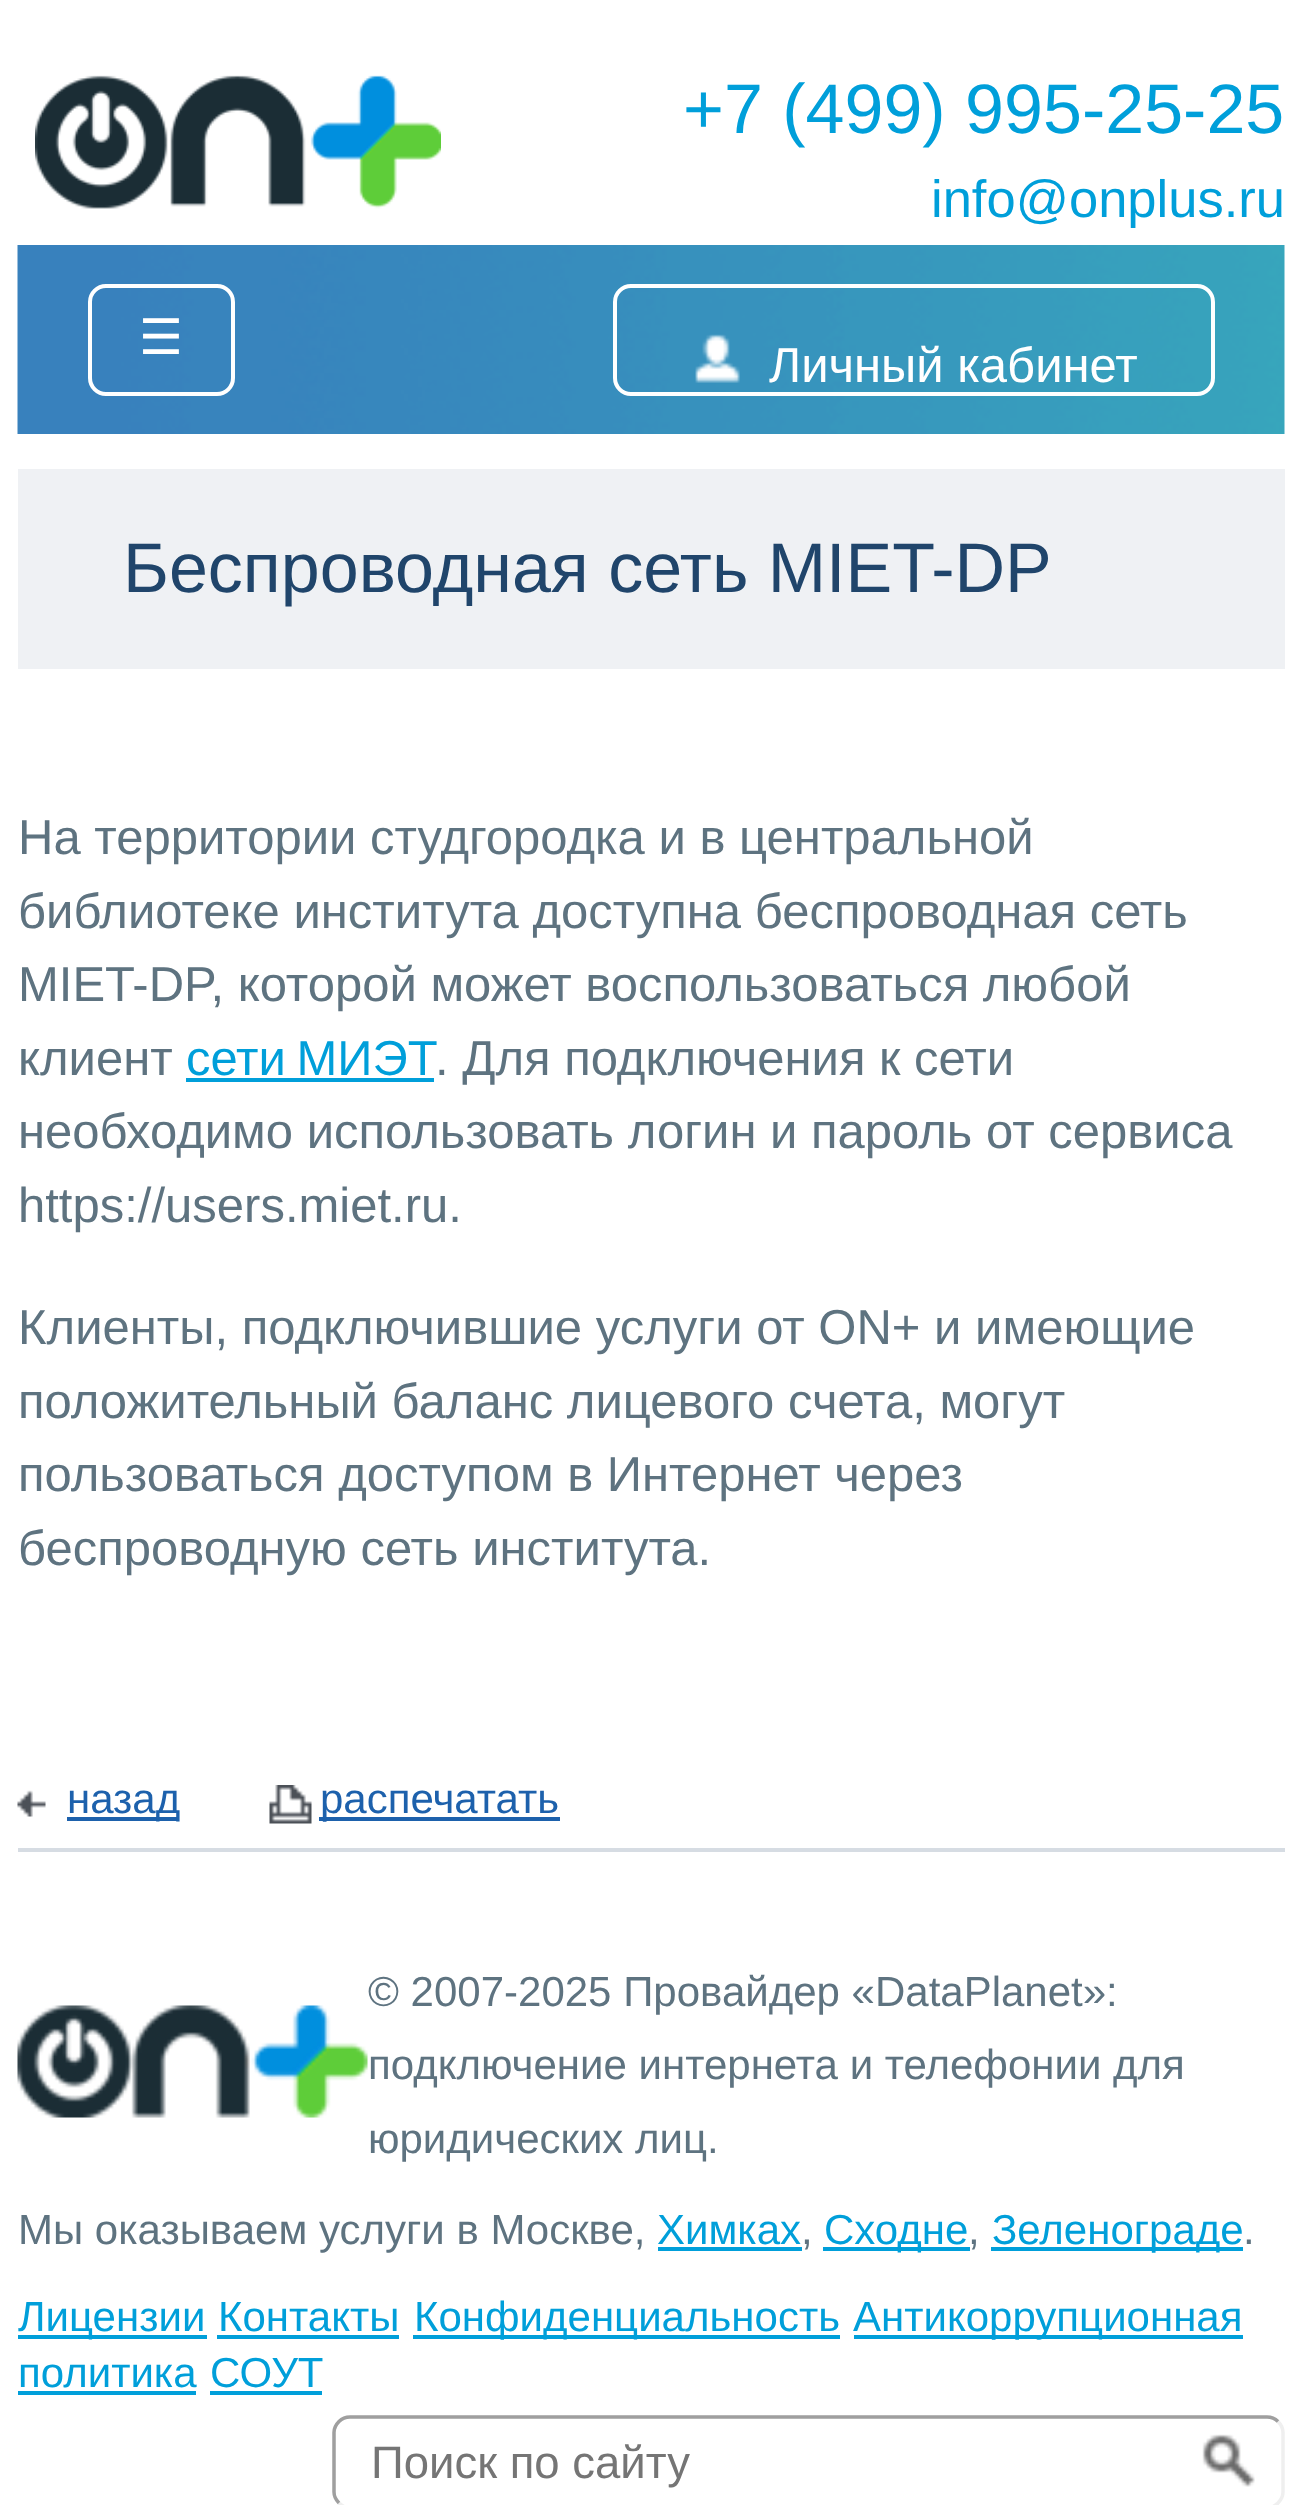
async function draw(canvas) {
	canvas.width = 1300;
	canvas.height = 2505;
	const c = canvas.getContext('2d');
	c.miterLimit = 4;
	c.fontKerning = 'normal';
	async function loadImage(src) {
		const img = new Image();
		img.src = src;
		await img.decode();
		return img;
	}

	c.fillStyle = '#fff';
	c.fillRect(0, 0, 1300, 2505);
	c.drawImage(await loadImage('img1.png'), 35, 75, 406, 134);
	c.font = '70px Liberation Sans';
	c.fillStyle = '#009fda';
	c.fillText('+7 (499) 995-25-25', 683, 133);
	c.font = '52.5px Liberation Sans';
	c.fillText('info@onplus.ru', 931, 217);
	c.drawImage(await loadImage('img2.png'), 17, 245, 1268, 189);
	c.beginPath();
	c.roundRect(90, 286, 143, 108, 16);
	c.strokeStyle = '#fff';
	c.lineWidth = 4;
	c.stroke();
	c.font = '49px DejaVu Sans';
	c.fillStyle = '#fff';
	c.fillText('☰', 139, 354);
	c.beginPath();
	c.roundRect(615, 286, 598, 108, 16);
	c.stroke();
	c.drawImage(await loadImage('img3.png'), 695, 334, 45, 49);
	c.font = '49px Liberation Sans';
	c.fillText('Личный кабинет', 769, 382);
	c.fillStyle = '#eff1f4';
	c.fillRect(18, 469, 1267, 200);
	c.font = '70px Liberation Sans';
	c.fillStyle = '#20456b';
	c.fillText('Беспроводная сеть MIET-DP', 123, 592);
	c.font = '49px Liberation Sans';
	c.fillStyle = '#5e7380';
	for (const [text, x, y] of [
		['На территории студгородка и в центральной', 18, 854],
		['библиотеке института доступна беспроводная сеть', 18, 928],
		['MIET-DP, которой может воспользоваться любой', 18, 1001],
		['клиент', 18, 1075],
	]) {
		c.fillText(text, x, y);
	}
	c.wordSpacing = '-3px';
	c.fillStyle = '#009fda';
	c.fillText('сети МИЭТ', 186, 1075);
	c.fillRect(186, 1078, 248, 4);
	c.wordSpacing = '0px';
	c.fillStyle = '#5e7380';
	for (const [text, x, y] of [
		['. Для подключения к сети', 435, 1075],
		['необходимо использовать логин и пароль от сервиса', 18, 1148],
		['https://users.miet.ru.', 18, 1222],
		['Клиенты, подключившие услуги от ON+ и имеющие', 18, 1344],
		['положительный баланс лицевого счета, могут', 18, 1418],
		['пользоваться доступом в Интернет через', 18, 1491],
		['беспроводную сеть института.', 18, 1565],
	]) {
		c.fillText(text, x, y);
	}
	c.drawImage(await loadImage('img4.png'), 17, 1790, 29, 27);
	c.fillStyle = '#1d61ac';
	c.fillRect(67, 1817, 112, 4);
	c.font = '42px Liberation Sans';
	c.fillText('назад', 67, 1813);
	c.drawImage(await loadImage('img5.png'), 269, 1785, 43, 39);
	c.fillRect(319, 1817, 241, 4);
	c.fillText('распечатать', 320, 1813);
	c.fillStyle = '#d6dce3';
	c.fillRect(18, 1848, 1267, 4);
	c.fillStyle = '#5e7380';
	for (const [text, x, y] of [
		['© 2007-2025 Провайдер «DataPlanet»:', 368, 2006],
		['подключение интернета и телефонии для', 368, 2079],
		['юридических лиц.', 368, 2153],
		['Мы оказываем услуги в Москве,', 18, 2244],
	]) {
		c.fillText(text, x, y);
	}
	c.fillStyle = '#009fda';
	c.fillText('Химках', 657, 2244);
	c.fillRect(658, 2247, 144, 4);
	c.fillStyle = '#5e7380';
	c.fillText(',', 801, 2244);
	c.fillStyle = '#009fda';
	c.fillRect(823, 2247, 147, 4);
	c.fillText('Сходне', 824, 2244);
	c.fillStyle = '#5e7380';
	c.fillText(',', 968, 2244);
	c.fillStyle = '#009fda';
	c.fillRect(991, 2247, 252, 4);
	c.fillText('Зеленограде', 992, 2244);
	c.fillStyle = '#5e7380';
	c.fillText('.', 1243, 2244);
	c.fillStyle = '#009fda';
	c.fillRect(18, 2335, 189, 4);
	c.fillText('Лицензии', 18, 2331);
	c.fillText('Контакты', 218, 2331);
	c.fillRect(217, 2335, 182, 4);
	c.fillRect(413, 2335, 427, 4);
	c.fillText('Конфиденциальность', 414, 2331);
	c.fillRect(854, 2335, 389, 4);
	c.fillText('Антикоррупционная', 853, 2331);
	c.fillText('политика', 18, 2387);
	c.fillRect(18, 2391, 178, 4);
	c.fillText('СОУТ', 210, 2387);
	c.fillRect(210, 2391, 112, 4);
	c.drawImage(await loadImage('img6.png'), 17, 2005, 351, 113);
	c.beginPath();
	c.moveTo(1278, 2421.5);
	c.bezierCurveTo(1281, 2424.5, 1283, 2428.5, 1283, 2432.5);
	c.lineTo(1283, 2492);
	c.bezierCurveTo(1283, 2496, 1281, 2500, 1278, 2503);
	c.bezierCurveTo(1275, 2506, 1271, 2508, 1267, 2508);
	c.lineTo(350, 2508);
	c.bezierCurveTo(346, 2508, 342, 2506, 339, 2503);
	c.strokeStyle = '#efefef';
	c.lineWidth = 3.5;
	c.stroke();
	c.beginPath();
	c.moveTo(339, 2503);
	c.bezierCurveTo(336, 2500, 334, 2496, 334, 2492);
	c.lineTo(334, 2432.5);
	c.bezierCurveTo(334, 2428.5, 336, 2424.5, 339, 2421.5);
	c.bezierCurveTo(342, 2418.5, 346, 2417, 350, 2417);
	c.lineTo(1267, 2417);
	c.bezierCurveTo(1271, 2417, 1275, 2418.5, 1278, 2421.5);
	c.strokeStyle = '#9f9f9f';
	c.stroke();
	c.font = '45.5px Liberation Sans';
	c.fillStyle = '#757575';
	c.fillText('Поиск по сайту', 371, 2478);
	c.drawImage(await loadImage('img7.png'), 1202, 2434, 53, 53);
}

draw(document.querySelector('canvas'));
